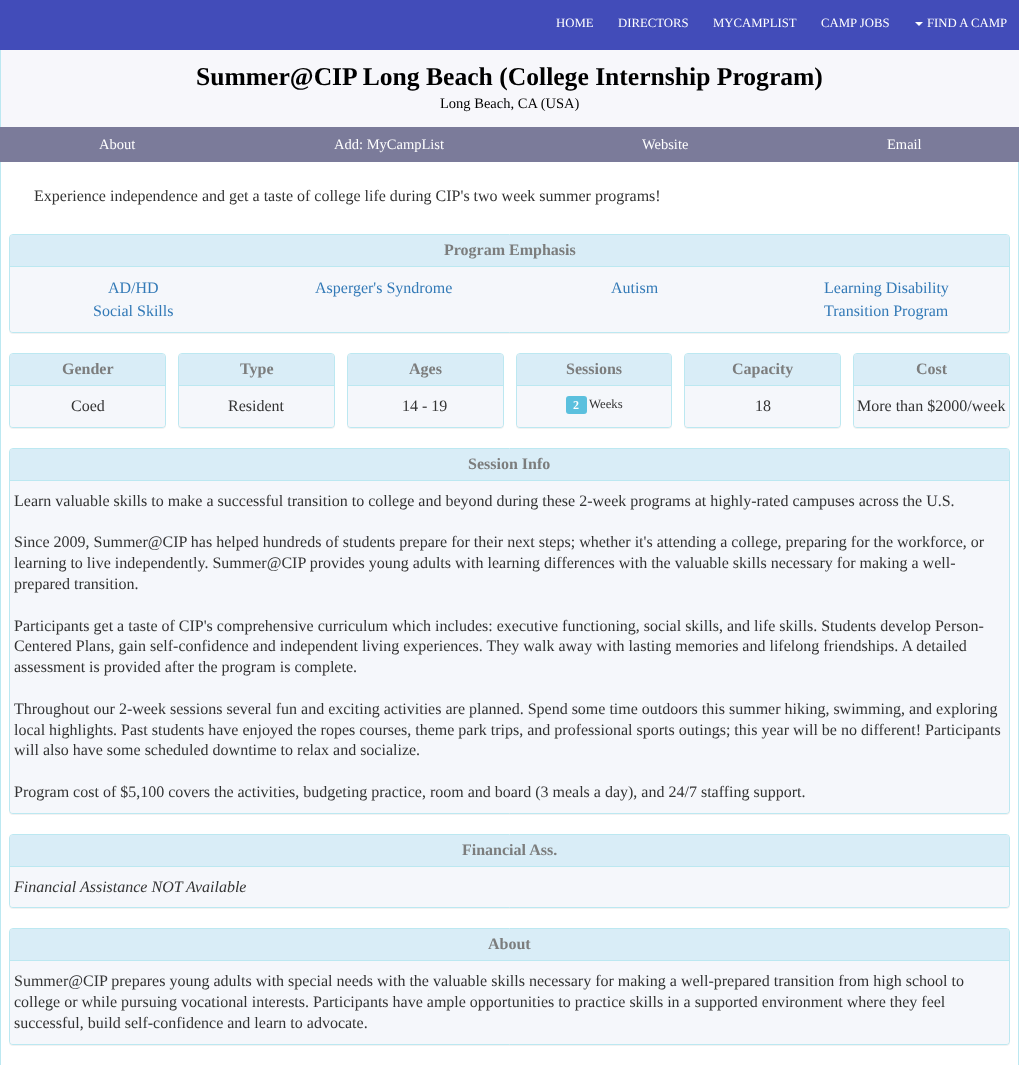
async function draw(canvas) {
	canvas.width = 1019;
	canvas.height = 1065;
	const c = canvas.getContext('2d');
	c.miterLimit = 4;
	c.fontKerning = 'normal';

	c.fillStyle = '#fff';
	c.fillRect(0, 0, 1019, 1065);
	c.strokeStyle = '#bce8f1';
	c.strokeRect(0.5, 36.5, 1018, 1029);
	c.fillStyle = '#424cb9';
	c.fillRect(0, 0, 1019, 50);
	c.font = '12.75px Liberation Serif';
	c.fillStyle = '#fff';
	for (const [text, x, y] of [
		['HOME', 556, 27],
		['DIRECTORS', 618, 27],
		['MYCAMPLIST', 713, 27],
		['CAMP JOBS', 821, 27],
	]) {
		c.fillText(text, x, y);
	}
	c.beginPath();
	c.moveTo(915, 22);
	c.lineTo(923, 22);
	c.lineTo(919, 26);
	c.closePath();
	c.fill();
	c.fillText('FIND A CAMP', 927, 27);
	c.fillStyle = '#f7f7fb';
	c.fillRect(1, 50, 1018, 77);
	c.font = 'bold 25.6px Liberation Serif';
	c.fillStyle = '#000';
	c.fillText('Summer@CIP Long Beach (College Internship Program)', 196, 85);
	c.font = '14.5px Liberation Serif';
	c.fillText('Long Beach, CA (USA)', 440, 108);
	c.fillStyle = '#7b7b9a';
	c.fillRect(0, 127, 235, 35);
	c.fillStyle = '#fff';
	c.fillText('About', 99, 149);
	c.fillStyle = '#7b7b9a';
	c.fillRect(235, 127, 784, 35);
	c.fillStyle = '#fff';
	for (const [text, x, y] of [
		['Add: MyCampList', 334, 149],
		['Website', 642, 149],
		['Email', 887, 149],
	]) {
		c.fillText(text, x, y);
	}
	c.font = '16px Liberation Serif';
	c.fillStyle = '#333';
	c.fillText('Experience independence and get a taste of college life during CIP\'s two week summer programs!', 34, 201);
	c.fillStyle = '#0000000d';
	c.filter = 'blur(0.5px)';
	c.beginPath();
	c.roundRect(9, 235, 1001, 99, 4);
	c.fill();
	c.filter = 'none';
	c.beginPath();
	c.roundRect(9.5, 234.5, 1000, 98, 3.5);
	c.stroke();
	c.fillStyle = '#d9edf7';
	c.beginPath();
	c.roundRect(10, 235, 999, 32, [3, 3, 0, 0]);
	c.fill();
	c.fillStyle = '#bce8f1';
	c.fillRect(10, 266, 999, 1);
	c.font = 'bold 16px Liberation Serif';
	c.fillStyle = '#7c7d7d';
	c.fillText('Program Emphasis', 444, 255);
	c.fillStyle = '#f5f7fb';
	c.beginPath();
	c.roundRect(10, 267, 999, 65, [0, 0, 3, 3]);
	c.fill();
	c.font = '16px Liberation Serif';
	c.fillStyle = '#337ab7';
	for (const [text, x, y] of [
		['AD/HD', 108, 293],
		['Asperger\'s Syndrome', 315, 293],
		['Autism', 611, 293],
		['Learning Disability', 824, 293],
		['Social Skills', 93, 316],
		['Transition Program', 824, 316],
	]) {
		c.fillText(text, x, y);
	}
	c.fillStyle = '#0000000d';
	c.filter = 'blur(0.5px)';
	c.beginPath();
	c.roundRect(9, 354, 157, 75, 4);
	c.fill();
	c.filter = 'none';
	c.beginPath();
	c.roundRect(9.5, 353.5, 156, 74, 3.5);
	c.stroke();
	c.fillStyle = '#d9edf7';
	c.beginPath();
	c.roundRect(10, 354, 155, 32, [3, 3, 0, 0]);
	c.fill();
	c.fillStyle = '#bce8f1';
	c.fillRect(10, 385, 155, 1);
	c.font = 'bold 16px Liberation Serif';
	c.fillStyle = '#7c7d7d';
	c.fillText('Gender', 62, 374);
	c.fillStyle = '#f5f7fb';
	c.beginPath();
	c.roundRect(10, 386, 155, 41, [0, 0, 3, 3]);
	c.fill();
	c.font = '16px Liberation Serif';
	c.fillStyle = '#333';
	c.fillText('Coed', 71, 411);
	c.fillStyle = '#0000000d';
	c.filter = 'blur(0.5px)';
	c.beginPath();
	c.roundRect(178, 354, 157, 75, 4);
	c.fill();
	c.filter = 'none';
	c.beginPath();
	c.roundRect(178.5, 353.5, 156, 74, 3.5);
	c.stroke();
	c.fillStyle = '#d9edf7';
	c.beginPath();
	c.roundRect(179, 354, 155, 32, [3, 3, 0, 0]);
	c.fill();
	c.fillStyle = '#bce8f1';
	c.fillRect(179, 385, 155, 1);
	c.font = 'bold 16px Liberation Serif';
	c.fillStyle = '#7c7d7d';
	c.fillText('Type', 240, 374);
	c.fillStyle = '#f5f7fb';
	c.beginPath();
	c.roundRect(179, 386, 155, 41, [0, 0, 3, 3]);
	c.fill();
	c.font = '16px Liberation Serif';
	c.fillStyle = '#333';
	c.fillText('Resident', 228, 411);
	c.fillStyle = '#0000000d';
	c.filter = 'blur(0.5px)';
	c.beginPath();
	c.roundRect(347, 354, 157, 75, 4);
	c.fill();
	c.filter = 'none';
	c.beginPath();
	c.roundRect(347.5, 353.5, 156, 74, 3.5);
	c.stroke();
	c.fillStyle = '#d9edf7';
	c.beginPath();
	c.roundRect(348, 354, 155, 32, [3, 3, 0, 0]);
	c.fill();
	c.fillStyle = '#bce8f1';
	c.fillRect(348, 385, 155, 1);
	c.font = 'bold 16px Liberation Serif';
	c.fillStyle = '#7c7d7d';
	c.fillText('Ages', 409, 374);
	c.fillStyle = '#f5f7fb';
	c.beginPath();
	c.roundRect(348, 386, 155, 41, [0, 0, 3, 3]);
	c.fill();
	c.font = '16px Liberation Serif';
	c.fillStyle = '#333';
	c.fillText('14 - 19', 402, 411);
	c.fillStyle = '#0000000d';
	c.filter = 'blur(0.5px)';
	c.beginPath();
	c.roundRect(516, 354, 156, 75, 4);
	c.fill();
	c.filter = 'none';
	c.beginPath();
	c.roundRect(516.5, 353.5, 155, 74, 3.5);
	c.stroke();
	c.fillStyle = '#d9edf7';
	c.beginPath();
	c.roundRect(517, 354, 154, 32, [3, 3, 0, 0]);
	c.fill();
	c.fillStyle = '#bce8f1';
	c.fillRect(517, 385, 154, 1);
	c.font = 'bold 16px Liberation Serif';
	c.fillStyle = '#7c7d7d';
	c.fillText('Sessions', 566, 374);
	c.fillStyle = '#f5f7fb';
	c.beginPath();
	c.roundRect(517, 386, 154, 41, [0, 0, 3, 3]);
	c.fill();
	c.fillStyle = '#5bc0de';
	c.beginPath();
	c.roundRect(566, 396, 21, 18, 3);
	c.fill();
	c.font = 'bold 12px Liberation Serif';
	c.fillStyle = '#fff';
	c.fillText('2', 573, 409);
	c.font = '12.75px Liberation Serif';
	c.fillStyle = '#333';
	c.fillText('Weeks', 589, 408);
	c.fillStyle = '#0000000d';
	c.filter = 'blur(0.5px)';
	c.beginPath();
	c.roundRect(684, 354, 157, 75, 4);
	c.fill();
	c.filter = 'none';
	c.beginPath();
	c.roundRect(684.5, 353.5, 156, 74, 3.5);
	c.stroke();
	c.fillStyle = '#d9edf7';
	c.beginPath();
	c.roundRect(685, 354, 155, 32, [3, 3, 0, 0]);
	c.fill();
	c.fillStyle = '#bce8f1';
	c.fillRect(685, 385, 155, 1);
	c.font = 'bold 16px Liberation Serif';
	c.fillStyle = '#7c7d7d';
	c.fillText('Capacity', 732, 374);
	c.fillStyle = '#f5f7fb';
	c.beginPath();
	c.roundRect(685, 386, 155, 41, [0, 0, 3, 3]);
	c.fill();
	c.font = '16px Liberation Serif';
	c.fillStyle = '#333';
	c.fillText('18', 755, 411);
	c.fillStyle = '#0000000d';
	c.filter = 'blur(0.5px)';
	c.beginPath();
	c.roundRect(853, 354, 157, 75, 4);
	c.fill();
	c.filter = 'none';
	c.beginPath();
	c.roundRect(853.5, 353.5, 156, 74, 3.5);
	c.stroke();
	c.fillStyle = '#d9edf7';
	c.beginPath();
	c.roundRect(854, 354, 155, 32, [3, 3, 0, 0]);
	c.fill();
	c.fillStyle = '#bce8f1';
	c.fillRect(854, 385, 155, 1);
	c.font = 'bold 16px Liberation Serif';
	c.fillStyle = '#7c7d7d';
	c.fillText('Cost', 916, 374);
	c.fillStyle = '#f5f7fb';
	c.beginPath();
	c.roundRect(854, 386, 155, 41, [0, 0, 3, 3]);
	c.fill();
	c.font = '16px Liberation Serif';
	c.fillStyle = '#333';
	c.fillText('More than $2000/week', 857, 411);
	c.fillStyle = '#0000000d';
	c.filter = 'blur(0.5px)';
	c.beginPath();
	c.roundRect(9, 449, 1001, 366, 4);
	c.fill();
	c.filter = 'none';
	c.beginPath();
	c.roundRect(9.5, 448.5, 1000, 365, 3.5);
	c.stroke();
	c.fillStyle = '#d9edf7';
	c.beginPath();
	c.roundRect(10, 449, 999, 32, [3, 3, 0, 0]);
	c.fill();
	c.fillStyle = '#bce8f1';
	c.fillRect(10, 480, 999, 1);
	c.font = 'bold 16px Liberation Serif';
	c.fillStyle = '#7c7d7d';
	c.fillText('Session Info', 468, 469);
	c.fillStyle = '#f5f7fb';
	c.beginPath();
	c.roundRect(10, 481, 999, 332, [0, 0, 3, 3]);
	c.fill();
	c.font = '16px Liberation Serif';
	c.fillStyle = '#333';
	for (const [text, x, y] of [
		['Learn valuable skills to make a successful transition to college and beyond during these 2-week programs at highly-rated campuses across the U.S.', 14, 506],
		['Since 2009, Summer@CIP has helped hundreds of students prepare for their next steps; whether it\'s attending a college, preparing for the workforce, or', 14, 547],
		['learning to live independently. Summer@CIP provides young adults with learning differences with the valuable skills necessary for making a well-', 14, 568],
		['prepared transition.', 14, 589],
		['Participants get a taste of CIP\'s comprehensive curriculum which includes: executive functioning, social skills, and life skills. Students develop Person-', 14, 631],
		['Centered Plans, gain self-confidence and independent living experiences. They walk away with lasting memories and lifelong friendships. A detailed', 14, 651],
		['assessment is provided after the program is complete.', 14, 672],
		['Throughout our 2-week sessions several fun and exciting activities are planned. Spend some time outdoors this summer hiking, swimming, and exploring', 14, 714],
		['local highlights. Past students have enjoyed the ropes courses, theme park trips, and professional sports outings; this year will be no different! Participants', 14, 735],
		['will also have some scheduled downtime to relax and socialize.', 14, 755],
		['Program cost of $5,100 covers the activities, budgeting practice, room and board (3 meals a day), and 24/7 staffing support.', 14, 797],
	]) {
		c.fillText(text, x, y);
	}
	c.fillStyle = '#0000000d';
	c.filter = 'blur(0.5px)';
	c.beginPath();
	c.roundRect(9, 835, 1001, 74, 4);
	c.fill();
	c.filter = 'none';
	c.beginPath();
	c.roundRect(9.5, 834.5, 1000, 73, 3.5);
	c.stroke();
	c.fillStyle = '#d9edf7';
	c.beginPath();
	c.roundRect(10, 835, 999, 32, [3, 3, 0, 0]);
	c.fill();
	c.fillStyle = '#bce8f1';
	c.fillRect(10, 866, 999, 1);
	c.font = 'bold 16px Liberation Serif';
	c.fillStyle = '#7c7d7d';
	c.fillText('Financial Ass.', 462, 855);
	c.fillStyle = '#f5f7fb';
	c.beginPath();
	c.roundRect(10, 867, 999, 40, [0, 0, 3, 3]);
	c.fill();
	c.font = 'italic 16px Liberation Serif';
	c.fillStyle = '#333';
	c.fillText('Financial Assistance NOT Available', 14, 892);
	c.fillStyle = '#0000000d';
	c.filter = 'blur(0.5px)';
	c.beginPath();
	c.roundRect(9, 929, 1001, 117, 4);
	c.fill();
	c.filter = 'none';
	c.beginPath();
	c.roundRect(9.5, 928.5, 1000, 116, 3.5);
	c.stroke();
	c.fillStyle = '#d9edf7';
	c.beginPath();
	c.roundRect(10, 929, 999, 32, [3, 3, 0, 0]);
	c.fill();
	c.fillStyle = '#bce8f1';
	c.fillRect(10, 960, 999, 1);
	c.font = 'bold 16px Liberation Serif';
	c.fillStyle = '#7c7d7d';
	c.fillText('About', 488, 949);
	c.fillStyle = '#f5f7fb';
	c.beginPath();
	c.roundRect(10, 961, 999, 83, [0, 0, 3, 3]);
	c.fill();
	c.font = '16px Liberation Serif';
	c.fillStyle = '#333';
	for (const [text, x, y] of [
		['Summer@CIP prepares young adults with special needs with the valuable skills necessary for making a well-prepared transition from high school to', 14, 986],
		['college or while pursuing vocational interests. Participants have ample opportunities to practice skills in a supported environment where they feel', 14, 1007],
		['successful, build self-confidence and learn to advocate.', 14, 1028],
	]) {
		c.fillText(text, x, y);
	}
}

draw(document.querySelector('canvas'));
